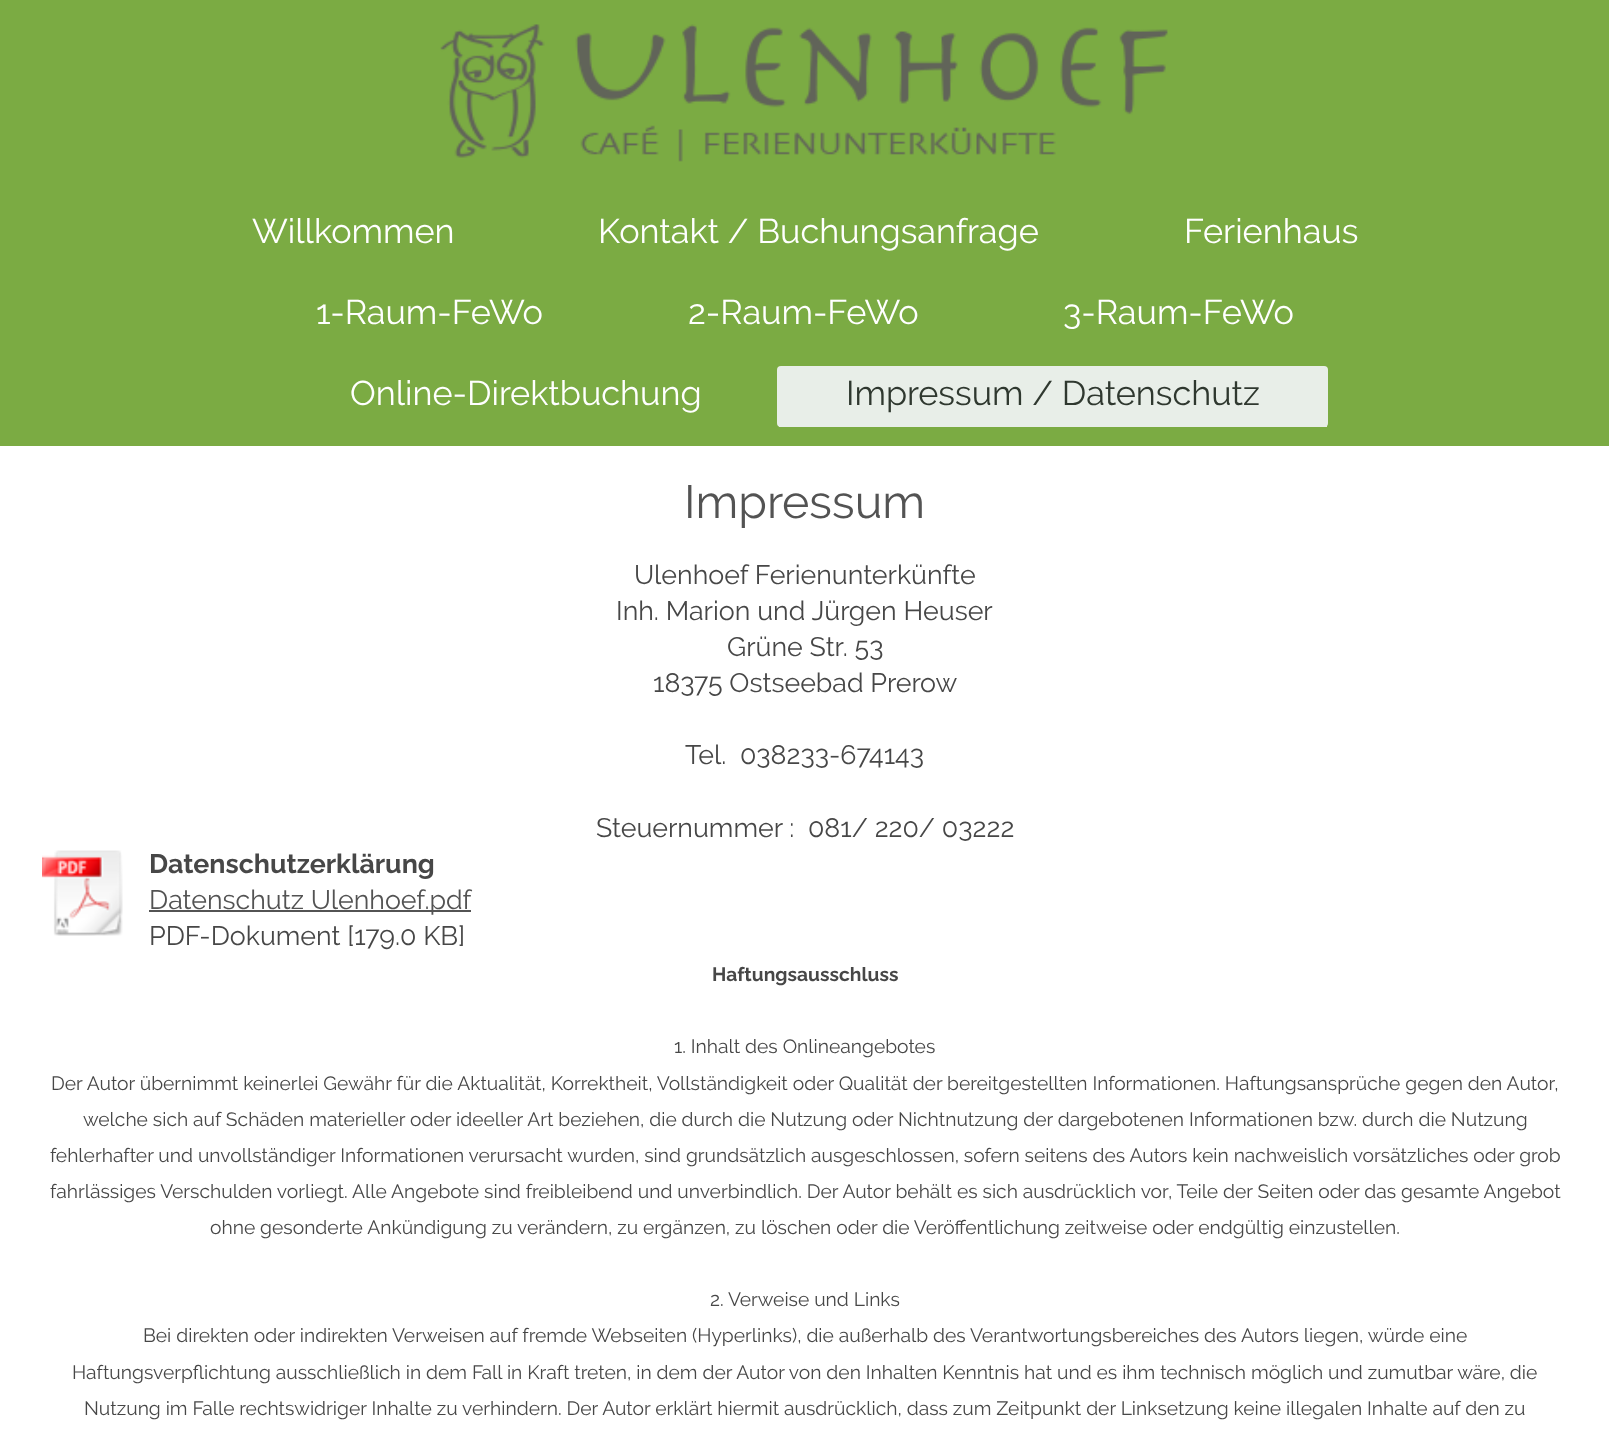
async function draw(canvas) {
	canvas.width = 1609;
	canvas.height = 1430;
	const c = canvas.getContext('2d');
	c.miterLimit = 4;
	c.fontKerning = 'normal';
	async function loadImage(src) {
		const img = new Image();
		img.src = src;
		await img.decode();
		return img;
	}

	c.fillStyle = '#fff';
	c.fillRect(0, 0, 1609, 1430);
	c.fillStyle = '#7bab43';
	c.fillRect(0, 0, 1609, 446);
	c.drawImage(await loadImage('img1.png'), 440, 24, 728, 138);
	c.font = '34.25px Raleway';
	c.fillStyle = '#fff';
	for (const [text, x, y] of [
		['Willkommen', 252, 243],
		['Kontakt / Buchungsanfrage', 598, 243],
		['Ferienhaus', 1184, 243],
		['1-Raum-FeWo', 316, 324],
		['2-Raum-FeWo', 688, 324],
		['3-Raum-FeWo', 1063, 324],
		['Online-Direktbuchung', 350, 405],
	]) {
		c.fillText(text, x, y);
	}
	c.fillStyle = '#e8eee8';
	c.beginPath();
	c.roundRect(777, 366, 551, 61, 4);
	c.fill();
	c.fillRect(779, 425, 548, 2);
	c.fillStyle = '#2f382f';
	c.fillText('Impressum / Datenschutz', 846, 405);
	c.font = '46.5px Raleway';
	c.fillStyle = '#535353';
	c.fillText('Impressum', 684, 518);
	c.font = '26.75px Raleway';
	c.fillStyle = '#474747';
	for (const [text, x, y] of [
		['Ulenhoef Ferienunterkünfte', 634, 584],
		['Inh. Marion und Jürgen Heuser', 616, 620],
		['Grüne Str. 53', 727, 656],
		['18375 Ostseebad Prerow', 653, 692],
		['Tel.  038233-674143', 685, 764],
		['Steuernummer :  081/ 220/ 03222', 596, 837],
	]) {
		c.fillText(text, x, y);
	}
	c.drawImage(await loadImage('img2.png'), 42, 850, 81, 86);
	c.font = 'bold 26.75px Raleway';
	c.fillText('Datenschutzerklärung', 149, 873);
	c.fillStyle = '#535353';
	c.fillRect(149, 910, 322, 2);
	c.font = '26.75px Raleway';
	c.fillText('Datenschutz Ulenhoef.pdf', 149, 909);
	c.fillStyle = '#474747';
	c.fillText('PDF-Dokument [179.0 KB]', 149, 945);
	c.font = 'bold 19.25px Raleway';
	c.fillText('Haftungsausschluss', 712, 981);
	c.font = '19.25px Raleway';
	for (const [text, x, y] of [
		['1. Inhalt des Onlineangebotes', 674, 1053],
		['Der Autor übernimmt keinerlei Gewähr für die Aktualität, Korrektheit, Vollständigkeit oder Qualität der bereitgestellten Informationen. Haftungsansprüche gegen den Autor,', 51, 1090],
		['welche sich auf Schäden materieller oder ideeller Art beziehen, die durch die Nutzung oder Nichtnutzung der dargebotenen Informationen bzw. durch die Nutzung', 83, 1126],
		['fehlerhafter und unvollständiger Informationen verursacht wurden, sind grundsätzlich ausgeschlossen, sofern seitens des Autors kein nachweislich vorsätzliches oder grob', 50, 1162],
		['fahrlässiges Verschulden vorliegt. Alle Angebote sind freibleibend und unverbindlich. Der Autor behält es sich ausdrücklich vor, Teile der Seiten oder das gesamte Angebot', 50, 1198],
		['ohne gesonderte Ankündigung zu verändern, zu ergänzen, zu löschen oder die Veröffentlichung zeitweise oder endgültig einzustellen.', 210, 1234],
		['2. Verweise und Links', 710, 1306],
		['Bei direkten oder indirekten Verweisen auf fremde Webseiten (Hyperlinks), die außerhalb des Verantwortungsbereiches des Autors liegen, würde eine', 143, 1342],
		['Haftungsverpflichtung ausschließlich in dem Fall in Kraft treten, in dem der Autor von den Inhalten Kenntnis hat und es ihm technisch möglich und zumutbar wäre, die', 72, 1379],
		['Nutzung im Falle rechtswidriger Inhalte zu verhindern. Der Autor erklärt hiermit ausdrücklich, dass zum Zeitpunkt der Linksetzung keine illegalen Inhalte auf den zu', 84, 1415],
	]) {
		c.fillText(text, x, y);
	}
}

draw(document.querySelector('canvas'));
